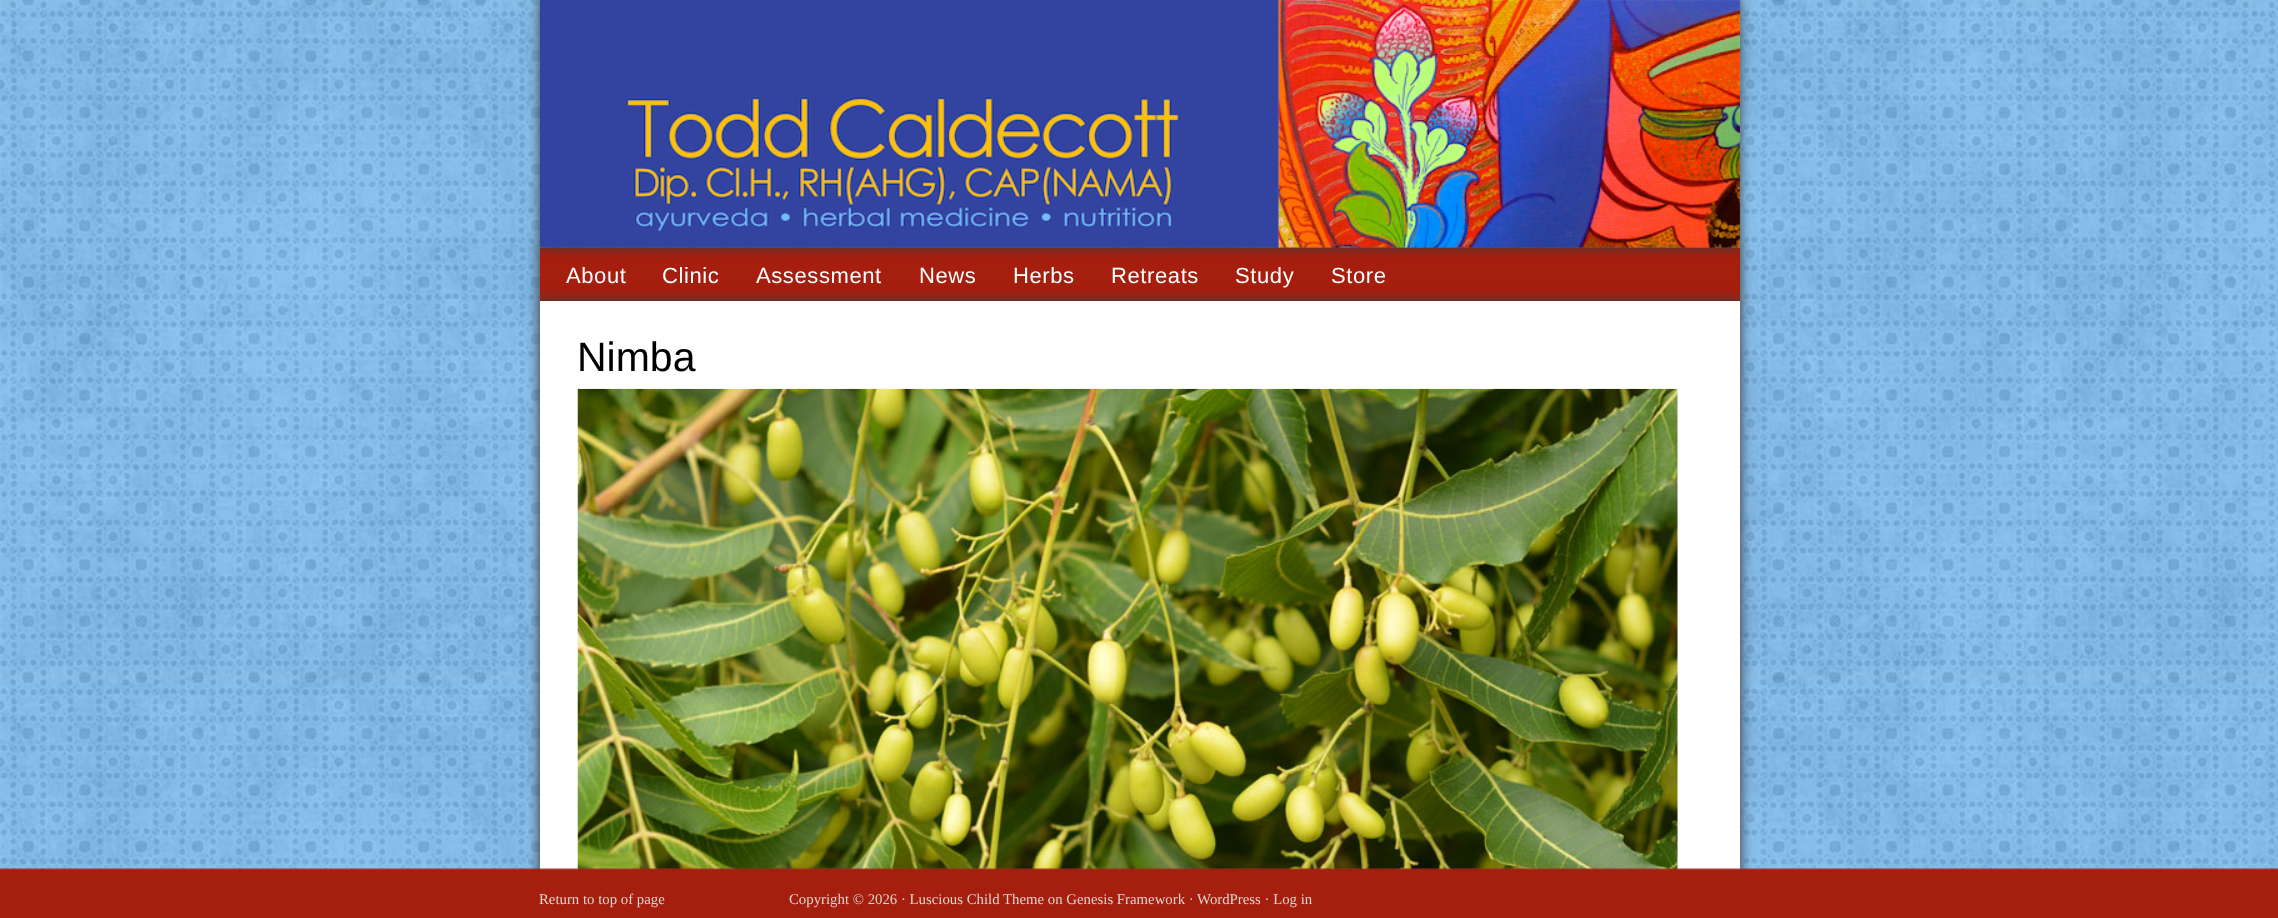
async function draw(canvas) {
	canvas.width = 2278;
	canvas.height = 918;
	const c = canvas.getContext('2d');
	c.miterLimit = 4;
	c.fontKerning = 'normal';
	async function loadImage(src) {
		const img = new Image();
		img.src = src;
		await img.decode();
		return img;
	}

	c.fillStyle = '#fff';
	c.fillRect(0, 0, 2278, 918);
	c.drawImage(await loadImage('img1.png'), 0, 0, 2278, 870);
	c.fillStyle = '#3e3e3e';
	c.filter = 'blur(6px)';
	c.beginPath();
	c.rect(539, 246, 1202, 57);
	c.fill();
	c.filter = 'none';
	c.fillStyle = '#a51e0e';
	c.fillRect(540, 248, 1200, 53);
	c.fillStyle = '#3e3e3e';
	c.filter = 'blur(6px)';
	c.beginPath();
	c.rect(540, 0, 1200, 248);
	c.fill();
	c.filter = 'none';
	c.drawImage(await loadImage('img2.png'), 540, 0, 1200, 248);
	c.filter = 'blur(6px)';
	c.beginPath();
	c.rect(539, 300, 1202, 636);
	c.fill();
	c.filter = 'none';
	c.letterSpacing = '0.6px';
	c.font = '22px Liberation Sans';
	c.fillStyle = '#fff';
	for (const [text, x, y] of [
		['About', 566, 283],
		['Clinic', 662, 283],
		['Assessment', 756, 283],
		['News', 919, 283],
		['Herbs', 1013, 283],
		['Retreats', 1111, 283],
		['Study', 1235, 283],
		['Store', 1331, 283],
	]) {
		c.fillText(text, x, y);
	}
	c.fillRect(540, 301, 1200, 569);
	c.letterSpacing = '0px';
	c.font = '41px Liberation Sans';
	c.fillStyle = '#000';
	c.fillText('Nimba', 577, 371);
	c.drawImage(await loadImage('img3.png'), 577, 388, 1101, 482);
	c.drawImage(await loadImage('img4.png'), 0, 868, 2278, 50);
	c.font = '14.8px Liberation Serif';
	c.fillStyle = '#d9d8d0';
	c.fillText('Return to top of page', 539, 904);
	c.fillText('Copyright © 2026 · Luscious Child Theme on Genesis Framework · WordPress · Log in', 789, 904);
}

draw(document.querySelector('canvas'));
